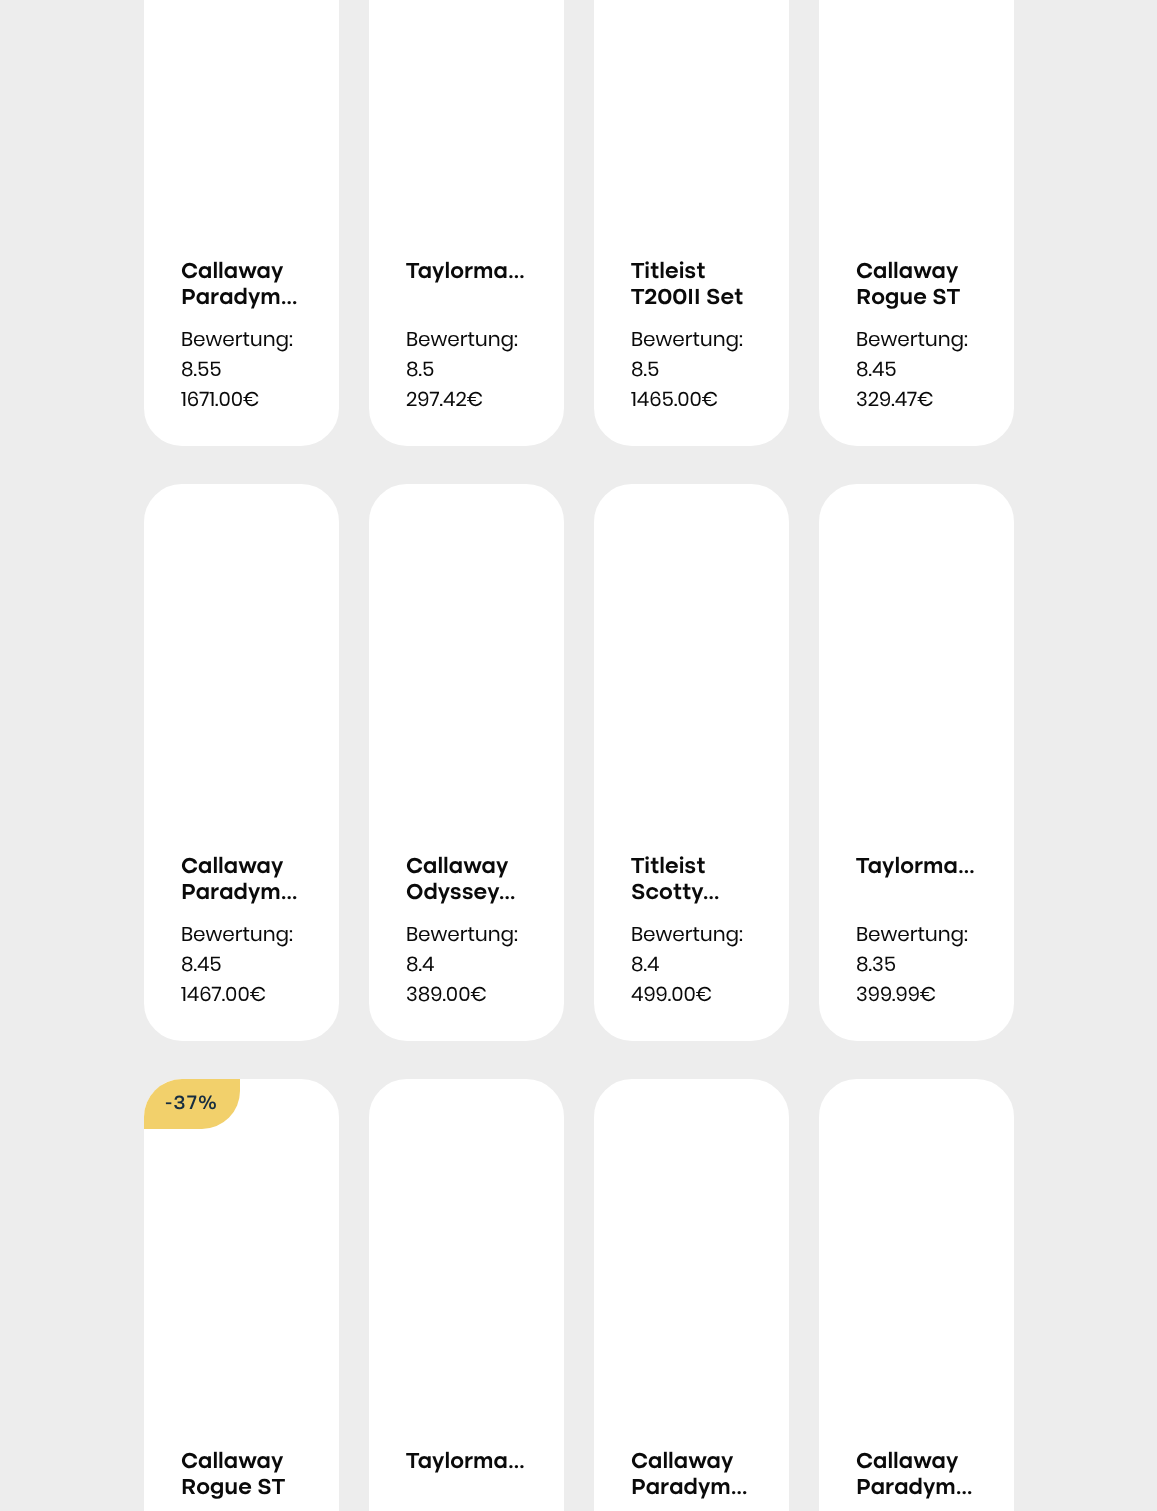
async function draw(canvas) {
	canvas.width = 1157;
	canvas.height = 1511;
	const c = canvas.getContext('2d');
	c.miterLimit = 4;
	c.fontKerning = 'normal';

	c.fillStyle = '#ededed';
	c.fillRect(0, 0, 1157, 1511);
	c.fillStyle = '#fff';
	c.beginPath();
	c.roundRect(147, -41, 189, 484, 35);
	c.fill();
	c.strokeStyle = '#fff';
	c.lineWidth = 6;
	c.stroke();
	c.font = '600 22.5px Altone';
	c.fillStyle = '#0a0a0a';
	c.fillText('Callaway', 181, 278);
	c.fillText('Paradym…', 181, 304);
	c.font = '20px Poppins';
	for (const [text, x, y] of [
		['Bewertung:', 181, 346],
		['8.55', 181, 376],
		['1671.00€', 181, 406],
	]) {
		c.fillText(text, x, y);
	}
	c.fillStyle = '#fff';
	c.beginPath();
	c.roundRect(372, -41, 189, 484, 35);
	c.fill();
	c.stroke();
	c.font = '600 22.5px Altone';
	c.fillStyle = '#0a0a0a';
	c.fillText('Taylorma…', 406, 278);
	c.font = '20px Poppins';
	for (const [text, x, y] of [
		['Bewertung:', 406, 346],
		['8.5', 406, 376],
		['297.42€', 406, 406],
	]) {
		c.fillText(text, x, y);
	}
	c.fillStyle = '#fff';
	c.beginPath();
	c.roundRect(597, -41, 189, 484, 35);
	c.fill();
	c.stroke();
	c.font = '600 22.5px Altone';
	c.fillStyle = '#0a0a0a';
	c.fillText('Titleist', 631, 278);
	c.fillText('T200II Set', 631, 304);
	c.font = '20px Poppins';
	for (const [text, x, y] of [
		['Bewertung:', 631, 346],
		['8.5', 631, 376],
		['1465.00€', 631, 406],
	]) {
		c.fillText(text, x, y);
	}
	c.fillStyle = '#fff';
	c.beginPath();
	c.roundRect(822, -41, 189, 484, 35);
	c.fill();
	c.stroke();
	c.font = '600 22.5px Altone';
	c.fillStyle = '#0a0a0a';
	c.fillText('Callaway', 856, 278);
	c.fillText('Rogue ST', 856, 304);
	c.font = '20px Poppins';
	for (const [text, x, y] of [
		['Bewertung:', 856, 346],
		['8.45', 856, 376],
		['329.47€', 856, 406],
	]) {
		c.fillText(text, x, y);
	}
	c.fillStyle = '#fff';
	c.beginPath();
	c.roundRect(147, 487, 189, 551, 35);
	c.fill();
	c.stroke();
	c.font = '600 22.5px Altone';
	c.fillStyle = '#0a0a0a';
	c.fillText('Callaway', 181, 873);
	c.fillText('Paradym…', 181, 899);
	c.font = '20px Poppins';
	for (const [text, x, y] of [
		['Bewertung:', 181, 941],
		['8.45', 181, 971],
		['1467.00€', 181, 1001],
	]) {
		c.fillText(text, x, y);
	}
	c.fillStyle = '#fff';
	c.beginPath();
	c.roundRect(372, 487, 189, 551, 35);
	c.fill();
	c.stroke();
	c.font = '600 22.5px Altone';
	c.fillStyle = '#0a0a0a';
	c.fillText('Callaway', 406, 873);
	c.fillText('Odyssey…', 406, 899);
	c.font = '20px Poppins';
	for (const [text, x, y] of [
		['Bewertung:', 406, 941],
		['8.4', 406, 971],
		['389.00€', 406, 1001],
	]) {
		c.fillText(text, x, y);
	}
	c.fillStyle = '#fff';
	c.beginPath();
	c.roundRect(597, 487, 189, 551, 35);
	c.fill();
	c.stroke();
	c.font = '600 22.5px Altone';
	c.fillStyle = '#0a0a0a';
	c.fillText('Titleist', 631, 873);
	c.fillText('Scotty…', 631, 899);
	c.font = '20px Poppins';
	for (const [text, x, y] of [
		['Bewertung:', 631, 941],
		['8.4', 631, 971],
		['499.00€', 631, 1001],
	]) {
		c.fillText(text, x, y);
	}
	c.fillStyle = '#fff';
	c.beginPath();
	c.roundRect(822, 487, 189, 551, 35);
	c.fill();
	c.stroke();
	c.font = '600 22.5px Altone';
	c.fillStyle = '#0a0a0a';
	c.fillText('Taylorma…', 856, 873);
	c.font = '20px Poppins';
	for (const [text, x, y] of [
		['Bewertung:', 856, 941],
		['8.35', 856, 971],
		['399.99€', 856, 1001],
	]) {
		c.fillText(text, x, y);
	}
	c.fillStyle = '#fff';
	c.beginPath();
	c.roundRect(147, 1082, 189, 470, 35);
	c.fill();
	c.stroke();
	c.fillStyle = '#f2d06b';
	c.beginPath();
	c.roundRect(144, 1079, 96, 50, [38, 0, 38, 0]);
	c.fill();
	c.letterSpacing = '1px';
	c.font = '500 20px Altone';
	c.fillStyle = '#172d40';
	c.fillText('-37%', 165, 1109);
	c.letterSpacing = '0px';
	c.font = '600 22.5px Altone';
	c.fillStyle = '#0a0a0a';
	c.fillText('Callaway', 181, 1468);
	c.fillText('Rogue ST', 181, 1494);
	c.fillStyle = '#fff';
	c.beginPath();
	c.roundRect(372, 1082, 189, 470, 35);
	c.fill();
	c.stroke();
	c.fillStyle = '#0a0a0a';
	c.fillText('Taylorma…', 406, 1468);
	c.fillStyle = '#fff';
	c.beginPath();
	c.roundRect(597, 1082, 189, 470, 35);
	c.fill();
	c.stroke();
	c.fillStyle = '#0a0a0a';
	c.fillText('Callaway', 631, 1468);
	c.fillText('Paradym…', 631, 1494);
	c.fillStyle = '#fff';
	c.beginPath();
	c.roundRect(822, 1082, 189, 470, 35);
	c.fill();
	c.stroke();
	c.fillStyle = '#0a0a0a';
	c.fillText('Callaway', 856, 1468);
	c.fillText('Paradym…', 856, 1494);
}

draw(document.querySelector('canvas'));
